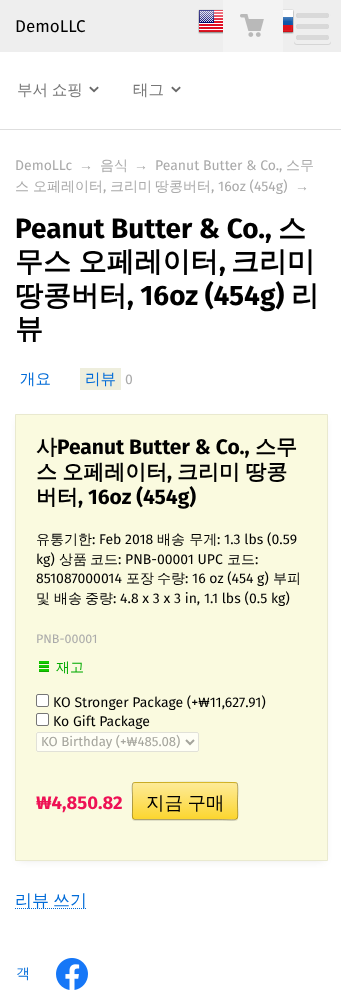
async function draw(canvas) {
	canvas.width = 341;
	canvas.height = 1008;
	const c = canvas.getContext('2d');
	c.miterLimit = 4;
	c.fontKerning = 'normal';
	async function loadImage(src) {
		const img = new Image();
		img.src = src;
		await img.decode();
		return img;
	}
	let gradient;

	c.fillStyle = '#fff';
	c.fillRect(0, 0, 341, 1008);
	c.fillStyle = '#eee';
	c.fillRect(0, 0, 341, 52);
	c.fillStyle = '#f3f3f3';
	c.fillRect(223, 0, 60, 52);
	c.drawImage(await loadImage('img1.png'), 240, 14, 24, 23);
	c.drawImage(await loadImage('img4.png'), 283, 9, 11, 25);
	c.save();
	c.beginPath();
	c.moveTo(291, 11);
	c.lineTo(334, 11);
	c.lineTo(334, 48);
	c.lineTo(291, 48);
	c.closePath();
	c.moveTo(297, 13);
	c.lineTo(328, 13);
	c.bezierCurveTo(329.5, 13, 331, 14.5, 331, 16);
	c.lineTo(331, 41);
	c.bezierCurveTo(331, 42.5, 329.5, 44, 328, 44);
	c.lineTo(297, 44);
	c.bezierCurveTo(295.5, 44, 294, 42.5, 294, 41);
	c.lineTo(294, 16);
	c.bezierCurveTo(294, 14.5, 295.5, 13, 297, 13);
	c.closePath();
	c.clip('evenodd');
	c.fillStyle = '#0000001a';
	c.filter = 'blur(0.5px)';
	c.beginPath();
	c.roundRect(294, 14, 37, 31, 3);
	c.fill();
	c.filter = 'none';
	c.restore();
	c.drawImage(await loadImage('img2.png'), 296, 13, 33, 27);
	c.font = '17px Fira Sans';
	c.fillStyle = '#000';
	c.fillText('DemoLLC', 15, 32);
	c.drawImage(await loadImage('img3.png'), 198, 9, 25, 25);
	c.fillStyle = '#dedede';
	c.fillRect(0, 129, 341, 1);
	c.drawImage(await loadImage('img5.png'), 89, 86, 10, 7);
	c.wordSpacing = '-1px';
	c.font = '500 15.5px WenQuanYi Zen Hei';
	c.fillStyle = '#777';
	c.fillText('부서 쇼핑', 17, 95);
	c.drawImage(await loadImage('img5.png'), 171, 86, 10, 7);
	c.wordSpacing = '0px';
	c.fillText('태그', 133, 95);
	c.font = '14px Fira Sans';
	c.fillStyle = '#aaa';
	c.fillText('DemoLLc', 15, 170);
	c.font = '14px Liberation Sans';
	c.fillText('→', 79, 170);
	c.font = '500 14px WenQuanYi Zen Hei';
	c.fillText('음식', 100, 170);
	c.font = '14px Liberation Sans';
	c.fillText('→', 134, 170);
	c.font = '14px Fira Sans';
	c.fillText('Peanut Butter & Co.,', 155, 170);
	c.font = '500 14px WenQuanYi Zen Hei';
	for (const [text, x, y] of [
		['스무', 286, 170],
		['스', 15, 191],
		['오페레이터', 33, 191],
	]) {
		c.fillText(text, x, y);
	}
	c.font = '14px Fira Sans';
	c.fillText(',', 103, 191);
	c.font = '500 14px WenQuanYi Zen Hei';
	c.fillText('크리미', 110, 191);
	c.fillText('땅콩버터', 155, 191);
	c.font = '14px Fira Sans';
	c.fillText(', 16oz (454g)', 211, 191);
	c.font = '14px Liberation Sans';
	c.fillText('→', 295, 191);
	c.font = 'bold 28px Fira Sans';
	c.fillStyle = '#000';
	c.fillText('Peanut Butter & Co.,', 15, 238);
	c.font = 'bold 28px WenQuanYi Zen Hei';
	c.fillText('스', 278, 238);
	c.wordSpacing = '-1px';
	c.fillText('무스 오페레이터', 15, 271);
	c.wordSpacing = '0px';
	c.font = 'bold 28px Fira Sans';
	c.fillText(',', 219, 271);
	c.font = 'bold 28px WenQuanYi Zen Hei';
	c.fillText('크리미', 231, 271);
	c.fillText('땅콩버터', 15, 305);
	c.font = 'bold 28px Fira Sans';
	c.fillText(', 16oz (454g)', 127, 305);
	c.font = 'bold 28px WenQuanYi Zen Hei';
	c.fillText('리', 291, 305);
	c.fillText('뷰', 15, 338);
	c.font = '500 15.5px WenQuanYi Zen Hei';
	c.fillStyle = '#006bd8';
	c.fillText('개요', 20, 384);
	c.fillStyle = '#eed';
	c.fillRect(80, 368, 41, 22);
	c.fillStyle = '#006bd8';
	c.fillText('리뷰', 85, 384);
	c.font = '14px Fira Sans';
	c.fillStyle = '#aaa';
	c.fillText('0', 125, 384);
	c.fillStyle = '#0000001a';
	c.filter = 'blur(4px)';
	c.beginPath();
	c.rect(19, 421, 305, 439);
	c.fill();
	c.filter = 'none';
	c.fillStyle = '#fafadf';
	c.beginPath();
	c.rect(15.5, 414.5, 312, 446);
	c.fill();
	c.strokeStyle = '#e9e9cf';
	c.stroke();
	c.font = 'bold 21px WenQuanYi Zen Hei';
	c.fillStyle = '#000';
	c.fillText('사', 36, 454);
	c.font = 'bold 21px Fira Sans';
	c.fillText('Peanut Butter & Co.,', 57, 454);
	c.font = 'bold 21px WenQuanYi Zen Hei';
	c.fillText('스무', 255, 454);
	c.wordSpacing = '-1px';
	c.fillText('스 오페레이터', 36, 479);
	c.wordSpacing = '0px';
	c.font = 'bold 21px Fira Sans';
	c.fillText(',', 167, 479);
	c.wordSpacing = '-1px';
	c.font = 'bold 21px WenQuanYi Zen Hei';
	c.fillText('크리미 땅콩', 177, 479);
	c.wordSpacing = '0px';
	c.fillText('버터', 36, 504);
	c.font = 'bold 21px Fira Sans';
	c.fillText(', 16oz (454g)', 78, 504);
	c.font = '500 14px WenQuanYi Zen Hei';
	c.fillText('유통기한', 36, 544);
	c.font = '14px Fira Sans';
	c.fillText(': Feb 2018', 92, 544);
	c.font = '500 14px WenQuanYi Zen Hei';
	c.fillText('배송 무게', 157, 544);
	c.font = '14px Fira Sans';
	c.fillText(': 1.3 lbs (0.59', 217, 544);
	c.fillText('kg)', 36, 564);
	c.font = '500 14px WenQuanYi Zen Hei';
	c.fillText('상품', 59, 564);
	c.fillText('코드', 90, 564);
	c.font = '14px Fira Sans';
	c.fillText(': PNB-00001 UPC', 118, 564);
	c.font = '500 14px WenQuanYi Zen Hei';
	c.fillText('코드', 227, 564);
	c.font = '14px Fira Sans';
	c.fillText(':', 255, 564);
	c.fillText('851087000014', 36, 583);
	c.font = '500 14px WenQuanYi Zen Hei';
	c.fillText('포장', 126, 583);
	c.fillText('수량', 157, 583);
	c.font = '14px Fira Sans';
	c.fillText(': 16 oz (454 g)', 185, 583);
	c.font = '500 14px WenQuanYi Zen Hei';
	for (const [text, x, y] of [
		['부피', 273, 583],
		['및', 36, 603],
		['배송', 54, 603],
		['중량', 85, 603],
	]) {
		c.fillText(text, x, y);
	}
	c.font = '14px Fira Sans';
	c.fillText(': 4.8 x 3 x 3 in, 1.1 lbs (0.5 kg)', 113, 603);
	c.font = '12.5px Fira Sans';
	c.fillStyle = '#aaa';
	c.fillText('PNB-00001', 36, 643);
	c.drawImage(await loadImage('img6.png'), 39, 661, 10, 11);
	c.font = '500 14px WenQuanYi Zen Hei';
	c.fillStyle = '#0a0';
	c.fillText('재고', 56, 672);
	c.fillStyle = '#fff';
	c.beginPath();
	c.roundRect(36.5, 694.5, 12, 12, 1.5);
	c.fill();
	c.strokeStyle = '#767676';
	c.stroke();
	c.font = '14px Fira Sans';
	c.fillStyle = '#000';
	c.fillText('KO Stronger Package (+₩11,627.91)', 53, 707);
	c.fillStyle = '#fff';
	c.beginPath();
	c.roundRect(36.5, 713.5, 12, 12, 1.5);
	c.fill();
	c.stroke();
	c.fillStyle = '#000';
	c.fillText('Ko Gift Package', 53, 726);
	c.fillStyle = '#fefef5';
	c.beginPath();
	c.roundRect(36, 732, 163, 20, 2);
	c.fill();
	c.beginPath();
	c.roundRect(36.5, 732.5, 162, 19, 1.5);
	c.strokeStyle = '#9e9e964d';
	c.stroke();
	c.beginPath();
	c.moveTo(186, 740);
	c.lineTo(190, 744);
	c.lineTo(194, 740);
	c.strokeStyle = '#a5a59d';
	c.lineWidth = 2;
	c.stroke();
	c.font = '13.25px Fira Sans';
	c.fillStyle = '#a5a59d';
	c.fillText('KO Birthday (+₩485.08)', 41, 746);
	c.font = 'bold 18.5px Fira Sans';
	c.fillStyle = '#e15';
	c.fillText('₩4,850.82', 36, 809);
	c.fillStyle = '#0000001a';
	c.filter = 'blur(0.5px)';
	c.beginPath();
	c.roundRect(132, 783, 106, 38, 3);
	c.fill();
	c.filter = 'none';
	c.fillStyle = '#fcd630';
	c.beginPath();
	c.roundRect(132, 782, 106, 38, 3);
	c.fill();
	gradient = c.createLinearGradient(185, 783, 185, 819);
	gradient.addColorStop(0, '#ffffff80');
	gradient.addColorStop(1, '#ffffff00');
	c.fillStyle = gradient;
	c.fillRect(132, 783, 106, 34);
	c.save();
	c.beginPath();
	c.roundRect(132, 782, 106, 38, 3);
	c.clip();
	gradient = c.createLinearGradient(185, 819, 185, 855);
	gradient.addColorStop(0, '#ffffff80');
	gradient.addColorStop(1, '#ffffff00');
	c.fillStyle = gradient;
	c.fillRect(132, 819, 106, 1);
	c.restore();
	c.beginPath();
	c.moveTo(133, 783);
	c.lineTo(135, 782.5);
	c.lineTo(151.5, 782.5);
	c.bezierCurveTo(160.5, 782.5, 234.5, 781.5, 236.5, 783);
	c.lineTo(237, 783);
	c.strokeStyle = '#00000033';
	c.lineWidth = 1;
	c.stroke();
	c.beginPath();
	c.moveTo(237, 783);
	c.bezierCurveTo(238.5, 785, 237.5, 798, 237.5, 801);
	c.bezierCurveTo(237.5, 823.5, 242, 819.5, 218.5, 819.5);
	c.lineTo(135, 819.5);
	c.bezierCurveTo(131.5, 819.5, 132.5, 813.5, 132.5, 811.5);
	c.lineTo(132.5, 795.5);
	c.bezierCurveTo(132.5, 793.5, 131.5, 785, 133, 783);
	c.strokeStyle = '#0000004d';
	c.stroke();
	c.wordSpacing = '-1px';
	c.font = '500 18.5px WenQuanYi Zen Hei';
	c.fillStyle = '#000';
	c.fillText('지금 구매', 146, 809);
	c.beginPath();
	c.moveTo(15, 908.5);
	c.lineTo(86, 908.5);
	c.strokeStyle = '#006bd8';
	c.setLineDash([1, 1]);
	c.stroke();
	c.font = '500 17px WenQuanYi Zen Hei';
	c.fillStyle = '#006bd8';
	c.fillText('리뷰 쓰기', 15, 906);
	c.wordSpacing = '0px';
	c.font = '500 14px WenQuanYi Zen Hei';
	c.fillText('객', 16, 978);
	c.drawImage(await loadImage('img7.png'), 56, 958, 32, 32);
}

draw(document.querySelector('canvas'));
